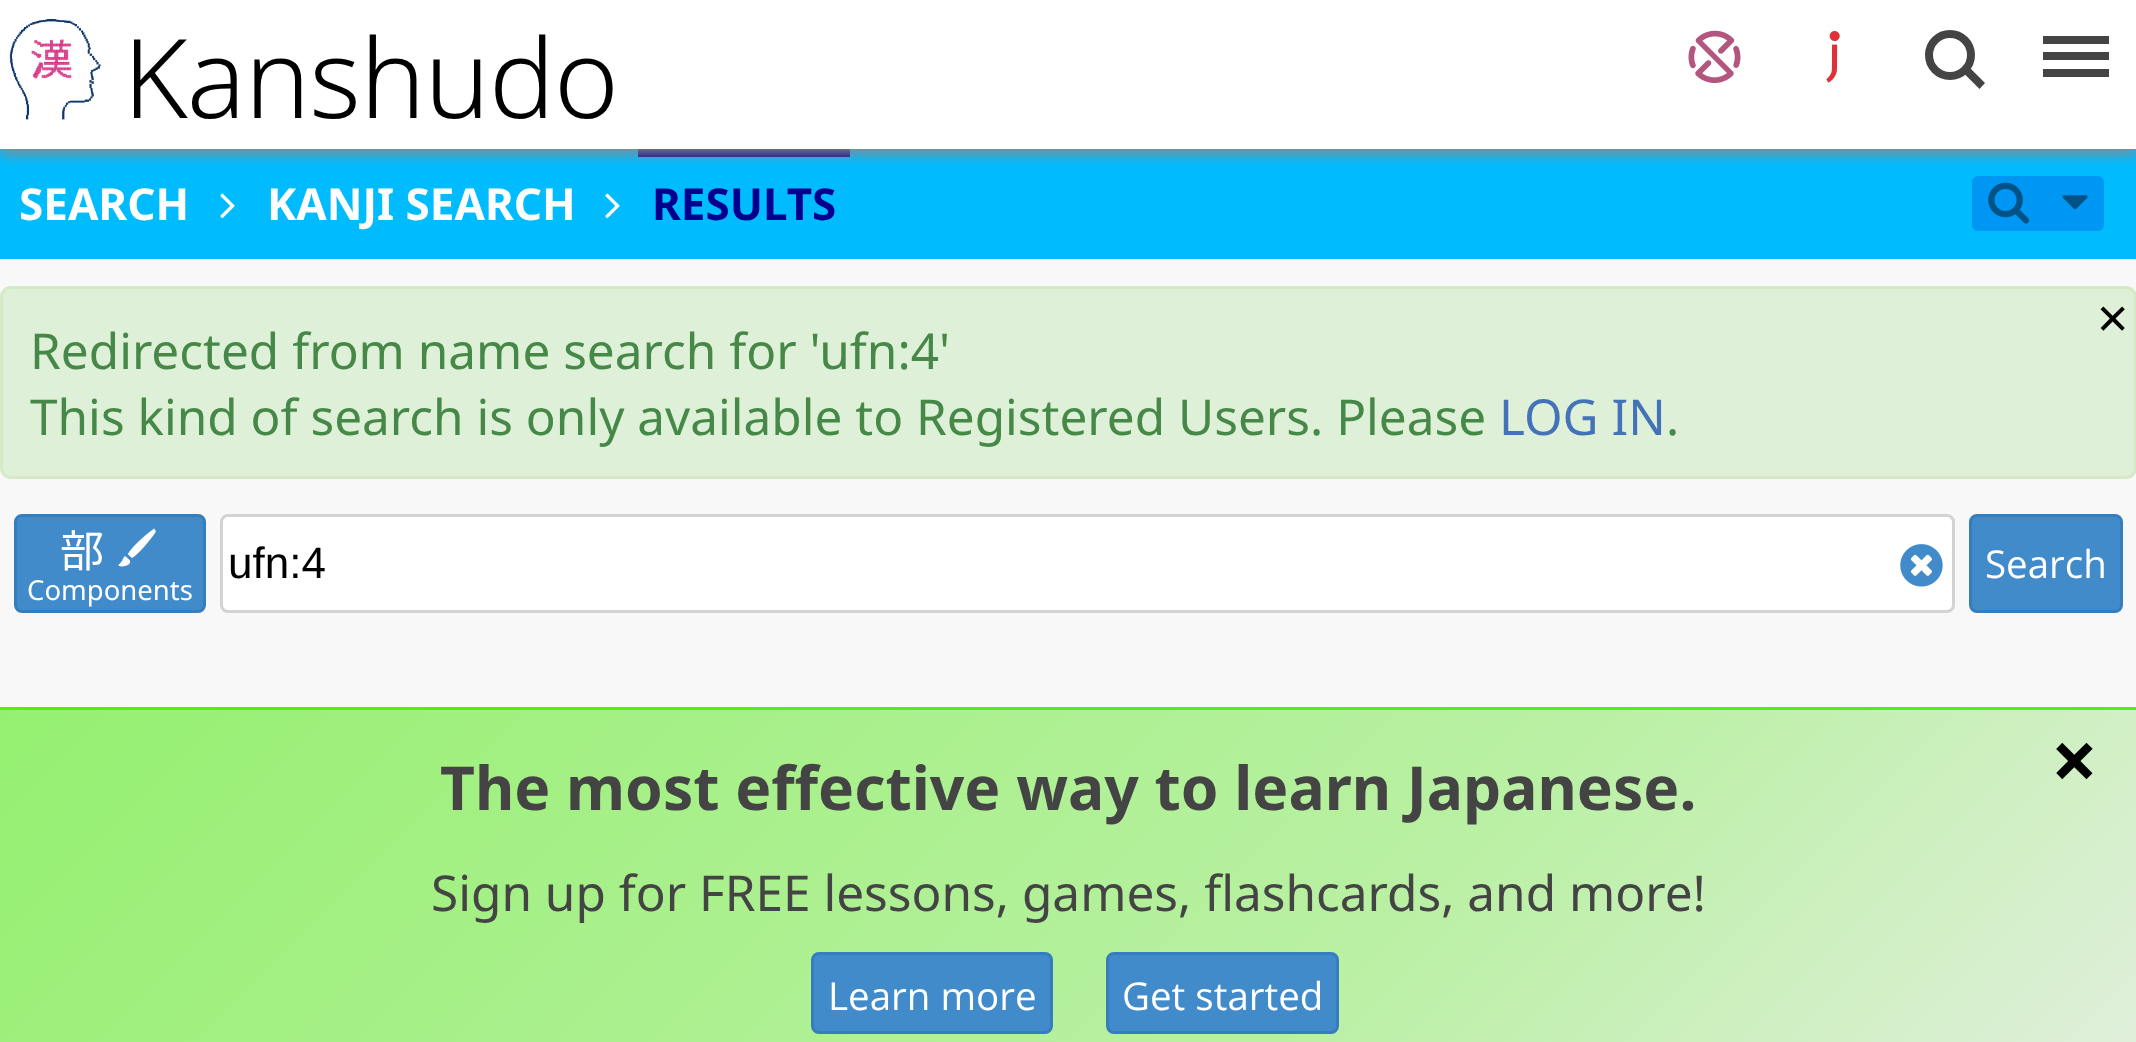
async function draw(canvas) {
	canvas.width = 2136;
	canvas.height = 1042;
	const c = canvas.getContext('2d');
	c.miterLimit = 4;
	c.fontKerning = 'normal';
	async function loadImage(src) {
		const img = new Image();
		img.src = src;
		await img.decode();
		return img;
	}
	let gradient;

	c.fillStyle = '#f8f8f8';
	c.fillRect(0, 0, 2136, 1042);
	c.fillStyle = '#00bcff';
	c.fillRect(0, 149, 2136, 110);
	c.fillStyle = '#00008e';
	c.fillRect(638, 149, 212, 8);
	c.fillStyle = '#888';
	c.filter = 'blur(7px)';
	c.beginPath();
	c.rect(0, 6, 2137, 148);
	c.fill();
	c.filter = 'none';
	c.fillStyle = '#fff';
	c.fillRect(0, 0, 2136, 149);
	c.drawImage(await loadImage('img1.png'), 9, 19, 92, 101);
	c.letterSpacing = '-1px';
	c.font = '300 110px Noto Sans';
	c.fillStyle = '#000';
	c.fillText('Kanshudo', 123, 118);
	c.drawImage(await loadImage('img2.png'), 1688, 30, 53, 53);
	c.drawImage(await loadImage('img3.png'), 1826, 31, 14, 52);
	c.beginPath();
	c.arc(1950, 55, 21, 0, 2 * Math.PI);
	c.strokeStyle = '#444';
	c.lineWidth = 8;
	c.stroke();
	c.fillStyle = '#444';
	c.beginPath();
	c.moveTo(1969.5, 67.5);
	c.lineTo(1985, 83);
	c.lineTo(1979.5, 89);
	c.lineTo(1964, 73.5);
	c.closePath();
	c.fill();
	for (const [x, y, w, h, color] of [
		[2043, 52, 66, 8, '#444'],
		[2043, 36, 66, 8, '#444'],
		[2043, 69, 66, 8, '#444'],
	]) {
		c.fillStyle = color;
		c.fillRect(x, y, w, h);
	}
	c.letterSpacing = '0px';
	c.font = 'bold 44px Noto Sans';
	c.fillStyle = '#fff';
	c.fillText('SEARCH', 19, 220);
	c.drawImage(await loadImage('img4.png'), 220, 193, 15, 26);
	c.fillText('KANJI SEARCH', 267, 220);
	c.drawImage(await loadImage('img4.png'), 605, 193, 15, 26);
	c.fillStyle = '#00008e';
	c.fillText('RESULTS', 652, 220);
	c.fillStyle = '#0096f4';
	c.beginPath();
	c.roundRect(1973.5, 177.5, 129, 52, 4.5);
	c.fill();
	c.strokeStyle = '#0096f4';
	c.lineWidth = 3;
	c.stroke();
	c.drawImage(await loadImage('img5.png'), 1988, 182, 42, 42);
	c.drawImage(await loadImage('img6.png'), 2062, 195, 26, 15);
	c.fillStyle = '#dff0d8';
	c.beginPath();
	c.roundRect(1.5, 287.5, 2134, 190, 9.5);
	c.fill();
	c.strokeStyle = '#d6e9c6';
	c.stroke();
	c.font = '55px Noto Sans';
	c.fillStyle = '#000';
	c.fillText('×', 2097, 338);
	c.font = '49.5px Noto Sans';
	c.fillStyle = '#468847';
	c.fillText('Redirected from name search for \'ufn:4\'', 30, 369);
	c.fillText('This kind of search is only available to Registered Users. Please', 30, 435);
	c.fillStyle = '#4472b9';
	c.fillText('LOG IN', 1499, 435);
	c.fillStyle = '#468847';
	c.fillText('.', 1666, 435);
	c.fillStyle = '#428bca';
	c.beginPath();
	c.roundRect(15.5, 515.5, 189, 96, 6.5);
	c.fill();
	c.strokeStyle = '#357ebd';
	c.stroke();
	c.font = '44px Noto Sans CJK JP';
	c.fillStyle = '#fff';
	c.fillText('部', 60, 567);
	c.drawImage(await loadImage('img7.png'), 118, 528, 38, 39);
	c.font = '27.5px Noto Sans';
	c.fillText('Components', 27, 600);
	c.beginPath();
	c.roundRect(221.5, 515.5, 1732, 96, 6.5);
	c.fill();
	c.strokeStyle = '#d3d3d3';
	c.stroke();
	c.font = '44px Liberation Sans';
	c.fillStyle = '#000';
	c.fillText('ufn:4', 228, 578);
	c.drawImage(await loadImage('img8.png'), 1900, 544, 43, 43);
	c.fillStyle = '#428bca';
	c.beginPath();
	c.roundRect(1970.5, 515.5, 151, 96, 6.5);
	c.fill();
	c.strokeStyle = '#357ebd';
	c.stroke();
	c.font = '38.5px Open Sans';
	c.fillStyle = '#fff';
	c.fillText('Search', 1985, 578);
	gradient = c.createLinearGradient(446, 263, 1691, 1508);
	gradient.addColorStop(0, '#95f070');
	gradient.addColorStop(0.65, '#baf0a4');
	gradient.addColorStop(1, '#e1efdc');
	c.fillStyle = gradient;
	c.fillRect(0, 710, 2136, 332);
	c.fillStyle = '#51f010';
	c.fillRect(0, 707, 2136, 3);
	c.font = 'bold 60.5px Noto Sans';
	c.fillStyle = '#444';
	c.fillText('The most effective way to learn Japanese.', 440, 810);
	c.font = 'bold 82px Noto Sans';
	c.fillStyle = '#000';
	c.fillText('×', 2051, 790);
	c.font = '49.5px Noto Sans';
	c.fillStyle = '#444';
	c.fillText('Sign up for FREE lessons, games, flashcards, and more!', 431, 911);
	c.fillStyle = '#428bca';
	c.beginPath();
	c.roundRect(812.5, 953.5, 239, 79, 6.5);
	c.fill();
	c.stroke();
	c.font = '38.5px Open Sans';
	c.fillStyle = '#fff';
	c.fillText('Learn more', 828, 1010);
	c.fillStyle = '#428bca';
	c.beginPath();
	c.roundRect(1107.5, 953.5, 230, 79, 6.5);
	c.fill();
	c.stroke();
	c.fillStyle = '#fff';
	c.fillText('Get started', 1122, 1010);
}

draw(document.querySelector('canvas'));
